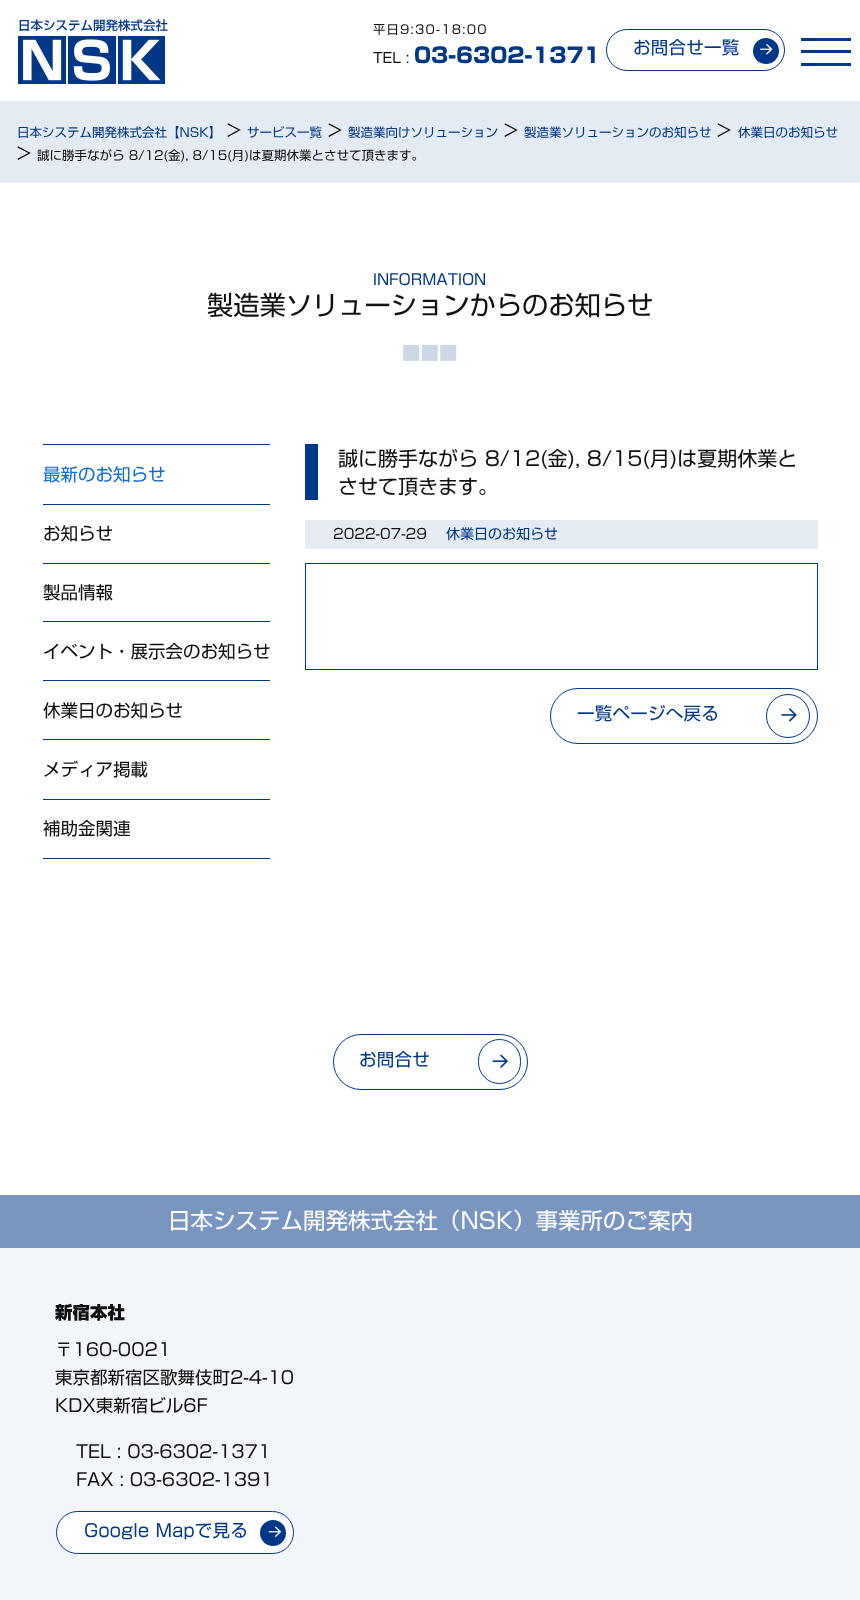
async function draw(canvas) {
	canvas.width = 860;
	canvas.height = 1600;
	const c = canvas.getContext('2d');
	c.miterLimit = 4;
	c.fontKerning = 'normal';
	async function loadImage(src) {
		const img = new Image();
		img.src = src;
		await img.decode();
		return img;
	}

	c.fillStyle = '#fff';
	c.fillRect(0, 0, 860, 1600);
	c.font = '500 12.5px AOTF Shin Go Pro';
	c.fillStyle = '#003786';
	c.fillText('日本システム開発株式会社', 18, 30);
	c.drawImage(await loadImage('img1.png'), 18, 36, 147, 48);
	c.letterSpacing = '1.25px';
	c.font = '12.25px AOTF Shin Go Pro';
	c.fillStyle = '#111';
	c.fillText('平日9:30-18:00', 373, 34);
	c.letterSpacing = '0px';
	c.font = '14px AOTF Shin Go Pro';
	c.fillText('TEL :', 373, 63);
	c.font = '900 21px AOTF Shin Go Pro';
	c.fillStyle = '#003786';
	c.fillText('03-6302-1371', 414, 63);
	c.beginPath();
	c.roundRect(606.5, 29.5, 178, 41, 20.5);
	c.strokeStyle = '#003786';
	c.stroke();
	c.letterSpacing = '0.25px';
	c.font = '17.5px AOTF Shin Go Pro';
	c.fillText('お問合せ一覧', 633, 54);
	c.beginPath();
	c.arc(766, 51, 13, 0, 2 * Math.PI);
	c.fill();
	c.drawImage(await loadImage('img2.png'), 760, 44, 13, 11);
	for (const [x, y, w, h, color] of [
		[801, 50, 50, 3, '#003786'],
		[801, 38, 50, 3, '#003786'],
		[801, 63, 50, 3, '#003786'],
		[0, 101, 860, 82, '#e5ebf2'],
	]) {
		c.fillStyle = color;
		c.fillRect(x, y, w, h);
	}
	c.letterSpacing = '0px';
	c.font = '12.5px AOTF Shin Go Pro';
	c.fillStyle = '#003786';
	c.fillText('日本システム開発株式会社【NSK】', 17, 137);
	c.font = '17.5px AOTF Shin Go Pro';
	c.fillStyle = '#111';
	c.fillText('>', 227, 137);
	c.font = '12.5px AOTF Shin Go Pro';
	c.fillStyle = '#003786';
	c.fillText('サービス一覧', 247, 137);
	c.font = '17.5px AOTF Shin Go Pro';
	c.fillStyle = '#111';
	c.fillText('>', 328, 137);
	c.font = '12.5px AOTF Shin Go Pro';
	c.fillStyle = '#003786';
	c.fillText('製造業向けソリューション', 348, 137);
	c.font = '17.5px AOTF Shin Go Pro';
	c.fillStyle = '#111';
	c.fillText('>', 504, 137);
	c.font = '12.5px AOTF Shin Go Pro';
	c.fillStyle = '#003786';
	c.fillText('製造業ソリューションのお知らせ', 524, 137);
	c.font = '17.5px AOTF Shin Go Pro';
	c.fillStyle = '#111';
	c.fillText('>', 717, 137);
	c.font = '12.5px AOTF Shin Go Pro';
	c.fillStyle = '#003786';
	c.fillText('休業日のお知らせ', 738, 137);
	c.font = '17.5px AOTF Shin Go Pro';
	c.fillStyle = '#111';
	c.fillText('>', 17, 160);
	c.font = '12.5px AOTF Shin Go Pro';
	c.fillText('誠に勝手ながら 8/12(金), 8/15(月)は夏期休業とさせて頂きます。', 37, 160);
	c.font = '15px AOTF Shin Go Pro';
	c.fillStyle = '#003786';
	c.fillText('INFORMATION', 373, 285);
	c.font = '26.25px AOTF Shin Go Pro';
	c.fillStyle = '#111';
	c.fillText('製造業ソリューションからのお知らせ', 207, 315);
	c.font = '18.5px AOTF Shin Go Pro';
	c.fillStyle = '#ccd7e7';
	c.fillText('■■■', 402, 360);
	c.fillStyle = '#003786';
	c.fillRect(43, 444, 227, 1);
	c.font = '17.5px AOTF Shin Go Pro';
	c.fillStyle = '#136dcd';
	c.fillText('最新のお知らせ', 43, 481);
	c.fillStyle = '#003786';
	c.fillRect(43, 504, 227, 1);
	c.fillStyle = '#111';
	c.fillText('お知らせ', 43, 540);
	c.fillStyle = '#003786';
	c.fillRect(43, 563, 227, 1);
	c.fillStyle = '#111';
	c.fillText('製品情報', 43, 599);
	c.fillStyle = '#003786';
	c.fillRect(43, 621, 227, 1);
	c.fillStyle = '#111';
	c.fillText('イベント・展示会のお知らせ', 43, 658);
	c.fillStyle = '#003786';
	c.fillRect(43, 680, 227, 1);
	c.fillStyle = '#111';
	c.fillText('休業日のお知らせ', 43, 717);
	c.fillStyle = '#003786';
	c.fillRect(43, 739, 227, 1);
	c.fillStyle = '#111';
	c.fillText('メディア掲載', 43, 776);
	c.fillStyle = '#003786';
	c.fillRect(43, 799, 227, 1);
	c.fillRect(43, 858, 227, 1);
	c.fillStyle = '#111';
	c.fillText('補助金関連', 43, 835);
	c.fillStyle = '#003786';
	c.fillRect(305, 444, 13, 56);
	c.font = '20px AOTF Shin Go Pro';
	c.fillStyle = '#111';
	c.fillText('誠に勝手ながら 8/12(金), 8/15(月)は夏期休業と', 338, 466);
	c.fillText('させて頂きます。', 338, 494);
	c.fillStyle = '#e5ebf2';
	c.fillRect(305, 520, 513, 29);
	c.font = '14px AOTF Shin Go Pro';
	c.fillStyle = '#111';
	c.fillText('2022-07-29', 333, 539);
	c.fillStyle = '#003786';
	c.fillText('休業日のお知らせ', 446, 539);
	c.strokeRect(305.5, 563.5, 512, 106);
	c.beginPath();
	c.roundRect(550.5, 688.5, 267, 55, 27.5);
	c.stroke();
	c.letterSpacing = '0.25px';
	c.font = '17.5px AOTF Shin Go Pro';
	c.fillText('一覧ページへ戻る', 577, 720);
	c.beginPath();
	c.arc(788, 716, 21.5, 0, 2 * Math.PI);
	c.stroke();
	c.drawImage(await loadImage('img3.png'), 781, 708, 16, 14);
	c.beginPath();
	c.roundRect(333.5, 1034.5, 194, 55, 27.5);
	c.stroke();
	c.fillText('お問合せ', 359, 1066);
	c.beginPath();
	c.roundRect(478.5, 1039.5, 42, 44, 21);
	c.stroke();
	c.drawImage(await loadImage('img4.png'), 492, 1054, 16, 14);
	c.fillStyle = '#f2f5f9';
	c.fillRect(0, 1248, 860, 352);
	c.fillStyle = '#7996c0';
	c.fillRect(0, 1195, 860, 53);
	c.letterSpacing = '0px';
	c.font = '22.5px AOTF Shin Go Pro';
	c.fillStyle = '#fff';
	c.fillText('日本システム開発株式会社（NSK）事業所のご案内', 168, 1229);
	c.font = '900 17.5px AOTF Shin Go Pro';
	c.fillStyle = '#111';
	c.fillText('新宿本社', 55, 1319);
	c.font = '17.5px AOTF Shin Go Pro';
	for (const [text, x, y] of [
		['〒160-0021', 55, 1356],
		['東京都新宿区歌舞伎町2-4-10', 55, 1384],
		['KDX東新宿ビル6F', 55, 1412],
		['TEL : 03-6302-1371', 76, 1458],
		['FAX : 03-6302-1391', 76, 1486],
	]) {
		c.fillText(text, x, y);
	}
	c.fillStyle = '#fff';
	c.beginPath();
	c.roundRect(56.5, 1511.5, 237, 42, 21);
	c.fill();
	c.stroke();
	c.letterSpacing = '0.25px';
	c.fillStyle = '#003786';
	c.fillText('Google Mapで見る', 84, 1537);
	c.beginPath();
	c.arc(273, 1533, 13, 0, 2 * Math.PI);
	c.fill();
	c.drawImage(await loadImage('img5.png'), 268, 1526, 13, 11);
}

draw(document.querySelector('canvas'));
